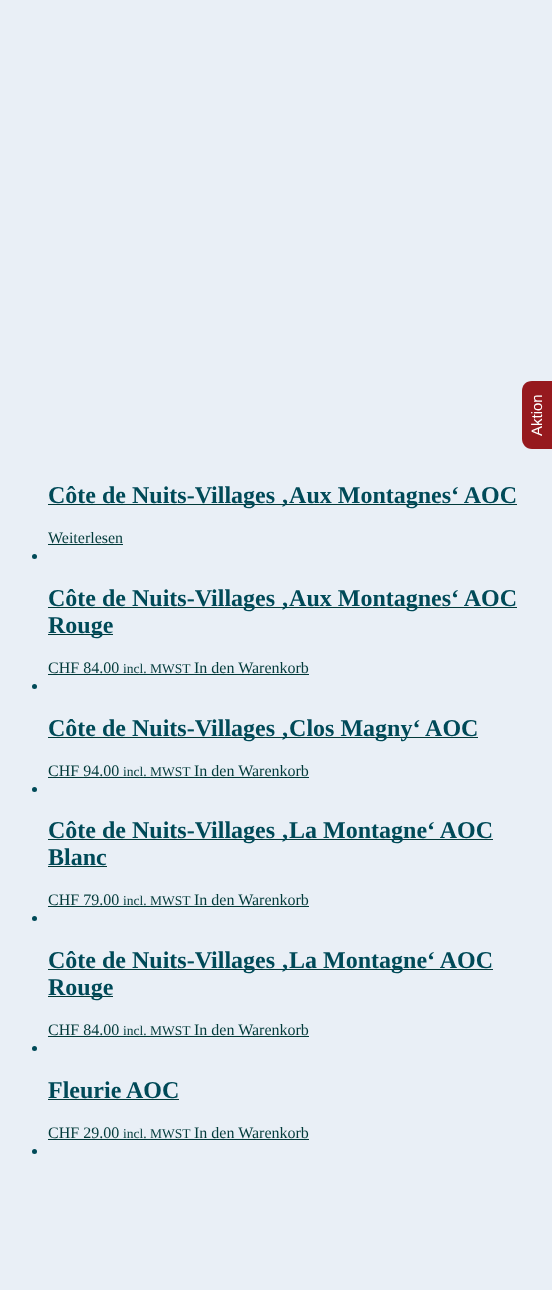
async function draw(canvas) {
	canvas.width = 552;
	canvas.height = 1290;
	const c = canvas.getContext('2d');
	c.miterLimit = 4;
	c.fontKerning = 'normal';

	c.fillStyle = '#e9eff6';
	c.fillRect(0, 0, 552, 1290);
	c.fillStyle = '#96191e';
	c.beginPath();
	c.moveTo(522, 439);
	c.lineTo(522, 391);
	c.bezierCurveTo(522, 385, 526, 381, 532, 381);
	c.lineTo(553, 381);
	c.lineTo(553, 449);
	c.lineTo(532, 449);
	c.bezierCurveTo(526, 449, 522, 444, 522, 439);
	c.closePath();
	c.fill();
	c.font = '15px Liberation Sans';
	c.fillStyle = '#fff';
	c.save();
	c.translate(542, 436);
	c.rotate(-90 * Math.PI / 180);
	c.fillText('Aktion', 0, 0);
	c.restore();
	c.fillStyle = '#023a3a';
	c.fillRect(48, 504, 469, 1);
	c.font = 'bold 24px Liberation Serif';
	c.fillStyle = '#004a58';
	c.fillText('Côte de Nuits-Villages ‚Aux Montagnes‘ AOC', 48, 503);
	c.font = '16px Liberation Serif';
	c.fillStyle = '#023a3a';
	c.fillText('Weiterlesen', 48, 543);
	c.fillRect(48, 544, 75, 1);
	c.fillStyle = '#004a58';
	c.beginPath();
	c.arc(34.5, 556.5, 2.5, 0, 2 * Math.PI);
	c.fill();
	c.fillStyle = '#023a3a';
	c.fillRect(48, 607, 469, 1);
	c.font = 'bold 24px Liberation Serif';
	c.fillStyle = '#004a58';
	c.fillText('Côte de Nuits-Villages ‚Aux Montagnes‘ AOC', 48, 606);
	c.fillStyle = '#023a3a';
	c.fillRect(48, 634, 65, 1);
	c.fillStyle = '#004a58';
	c.fillText('Rouge', 48, 633);
	c.font = '16px Liberation Serif';
	c.fillStyle = '#023a3a';
	c.fillText('CHF 84.00', 48, 673);
	c.font = '13.5px Liberation Serif';
	c.fillText('incl. MWST', 123, 673);
	c.fillRect(48, 674, 261, 1);
	c.font = '16px Liberation Serif';
	c.fillText('In den Warenkorb', 194, 673);
	c.fillStyle = '#004a58';
	c.beginPath();
	c.arc(34.5, 686.5, 2.5, 0, 2 * Math.PI);
	c.fill();
	c.fillStyle = '#023a3a';
	c.fillRect(48, 737, 430, 1);
	c.font = 'bold 24px Liberation Serif';
	c.fillStyle = '#004a58';
	c.fillText('Côte de Nuits-Villages ‚Clos Magny‘ AOC', 48, 736);
	c.font = '16px Liberation Serif';
	c.fillStyle = '#023a3a';
	c.fillText('CHF 94.00', 48, 776);
	c.font = '13.5px Liberation Serif';
	c.fillText('incl. MWST', 123, 776);
	c.fillRect(48, 777, 261, 1);
	c.font = '16px Liberation Serif';
	c.fillText('In den Warenkorb', 194, 776);
	c.fillStyle = '#004a58';
	c.beginPath();
	c.arc(34.5, 789.5, 2.5, 0, 2 * Math.PI);
	c.fill();
	c.fillStyle = '#023a3a';
	c.fillRect(48, 839, 445, 1);
	c.font = 'bold 24px Liberation Serif';
	c.fillStyle = '#004a58';
	c.fillText('Côte de Nuits-Villages ‚La Montagne‘ AOC', 48, 838);
	c.fillText('Blanc', 48, 865);
	c.fillStyle = '#023a3a';
	c.fillRect(48, 866, 59, 1);
	c.font = '16px Liberation Serif';
	c.fillText('CHF 79.00', 48, 905);
	c.font = '13.5px Liberation Serif';
	c.fillText('incl. MWST', 123, 905);
	c.fillRect(48, 906, 261, 1);
	c.font = '16px Liberation Serif';
	c.fillText('In den Warenkorb', 194, 905);
	c.fillStyle = '#004a58';
	c.beginPath();
	c.arc(34.5, 918.5, 2.5, 0, 2 * Math.PI);
	c.fill();
	c.fillStyle = '#023a3a';
	c.fillRect(48, 969, 445, 1);
	c.font = 'bold 24px Liberation Serif';
	c.fillStyle = '#004a58';
	c.fillText('Côte de Nuits-Villages ‚La Montagne‘ AOC', 48, 968);
	c.fillStyle = '#023a3a';
	c.fillRect(48, 996, 65, 1);
	c.fillStyle = '#004a58';
	c.fillText('Rouge', 48, 995);
	c.font = '16px Liberation Serif';
	c.fillStyle = '#023a3a';
	c.fillText('CHF 84.00', 48, 1035);
	c.font = '13.5px Liberation Serif';
	c.fillText('incl. MWST', 123, 1035);
	c.fillRect(48, 1036, 261, 1);
	c.font = '16px Liberation Serif';
	c.fillText('In den Warenkorb', 194, 1035);
	c.fillStyle = '#004a58';
	c.beginPath();
	c.arc(34.5, 1048.5, 2.5, 0, 2 * Math.PI);
	c.fill();
	c.font = 'bold 24px Liberation Serif';
	c.fillText('Fleurie AOC', 48, 1098);
	c.fillStyle = '#023a3a';
	c.fillRect(48, 1099, 131, 1);
	c.font = '16px Liberation Serif';
	c.fillText('CHF 29.00', 48, 1138);
	c.font = '13.5px Liberation Serif';
	c.fillText('incl. MWST', 123, 1138);
	c.fillRect(48, 1139, 261, 1);
	c.font = '16px Liberation Serif';
	c.fillText('In den Warenkorb', 194, 1138);
	c.fillStyle = '#004a58';
	c.beginPath();
	c.arc(34.5, 1151.5, 2.5, 0, 2 * Math.PI);
	c.fill();
}

draw(document.querySelector('canvas'));
